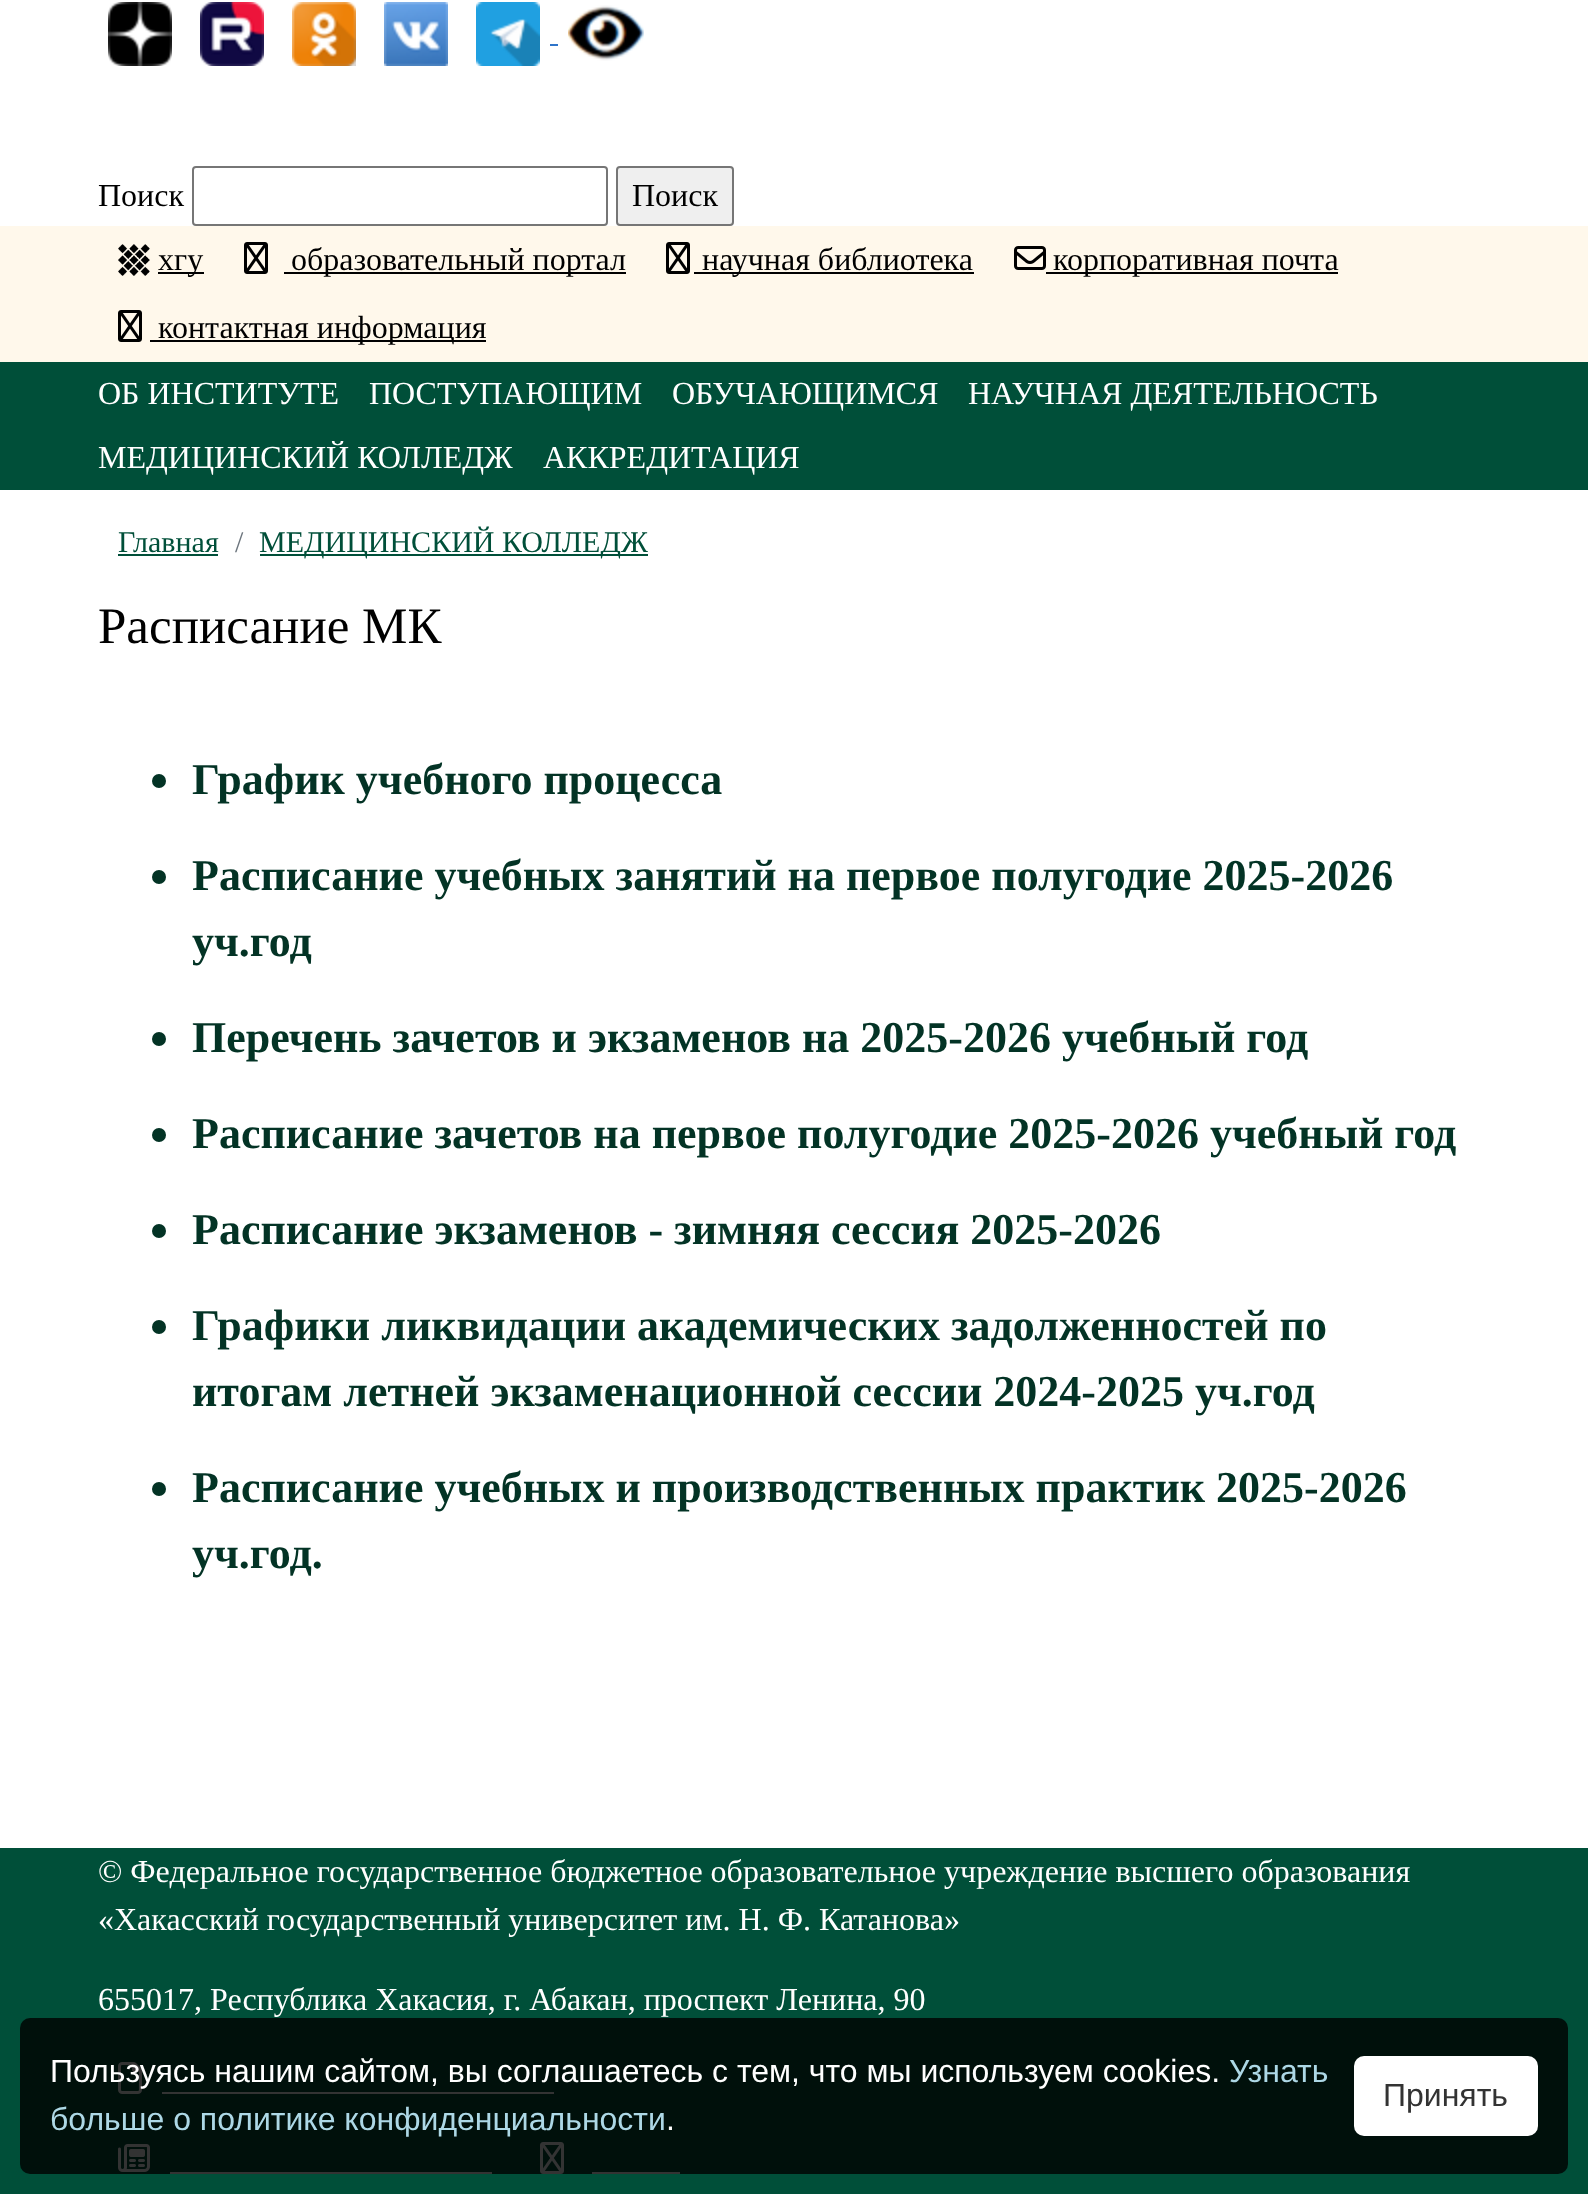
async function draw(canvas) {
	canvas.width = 1588;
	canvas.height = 2194;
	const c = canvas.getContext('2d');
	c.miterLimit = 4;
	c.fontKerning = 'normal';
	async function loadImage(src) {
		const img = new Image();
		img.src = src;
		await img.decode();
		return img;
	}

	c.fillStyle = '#fff';
	c.fillRect(0, 0, 1588, 2194);
	c.drawImage(await loadImage('img1.png'), 108, 2, 64, 64);
	c.drawImage(await loadImage('img2.png'), 200, 2, 64, 64);
	c.drawImage(await loadImage('img3.png'), 292, 2, 64, 64);
	c.drawImage(await loadImage('img4.png'), 384, 2, 64, 64);
	c.drawImage(await loadImage('img5.png'), 476, 2, 64, 64);
	c.fillStyle = '#2f74c9';
	c.fillRect(550, 44, 8, 2);
	c.drawImage(await loadImage('img6.png'), 568, 5, 76, 56);
	c.font = '32px Liberation Serif';
	c.fillStyle = '#000';
	c.fillText('Поиск', 98, 206);
	c.beginPath();
	c.roundRect(193, 167, 414, 58, 3);
	c.strokeStyle = '#767676';
	c.lineWidth = 2;
	c.stroke();
	c.fillStyle = '#efefef';
	c.beginPath();
	c.roundRect(617, 167, 116, 58, 3);
	c.fill();
	c.stroke();
	c.fillStyle = '#000';
	c.fillText('Поиск', 632, 206);
	c.fillStyle = '#fff8eb';
	c.fillRect(0, 226, 1588, 136);
	c.drawImage(await loadImage('img7.png'), 118, 244, 32, 32);
	c.fillStyle = '#000';
	c.fillRect(158, 272, 46, 2);
	c.fillText('хгу', 158, 270);
	c.drawImage(await loadImage('img8.png'), 244, 242, 24, 32);
	c.fillRect(284, 272, 342, 2);
	c.fillText('образовательный портал', 291, 270);
	c.drawImage(await loadImage('img8.png'), 666, 242, 24, 32);
	c.fillRect(694, 272, 280, 2);
	c.fillText('научная библиотека', 702, 270);
	c.drawImage(await loadImage('img9.png'), 1014, 246, 32, 24);
	c.fillRect(1046, 272, 292, 2);
	c.fillText('корпоративная почта', 1053, 270);
	c.drawImage(await loadImage('img8.png'), 118, 310, 24, 32);
	c.fillRect(150, 340, 336, 2);
	c.fillText('контактная информация', 158, 338);
	c.fillStyle = '#004f39';
	c.fillRect(0, 362, 1588, 128);
	c.fillStyle = '#fff';
	for (const [text, x, y] of [
		['ОБ ИНСТИТУТЕ', 98, 404],
		['ПОСТУПАЮЩИМ', 369, 404],
		['ОБУЧАЮЩИМСЯ', 672, 404],
		['НАУЧНАЯ ДЕЯТЕЛЬНОСТЬ', 968, 404],
		['МЕДИЦИНСКИЙ КОЛЛЕДЖ', 98, 468],
		['АККРЕДИТАЦИЯ', 543, 468],
	]) {
		c.fillText(text, x, y);
	}
	c.font = '30px Liberation Serif';
	c.fillStyle = '#004f39';
	c.fillText('Главная', 118, 552);
	c.fillRect(118, 554, 100, 2);
	c.fillStyle = '#6c757d';
	c.fillText('/', 235, 552);
	c.fillStyle = '#004f39';
	c.fillRect(260, 554, 388, 2);
	c.fillText('МЕДИЦИНСКИЙ КОЛЛЕДЖ', 259, 552);
	c.font = '51px Liberation Serif';
	c.fillStyle = '#000';
	c.fillText('Расписание МК', 98, 643);
	c.fillStyle = '#033325';
	c.beginPath();
	c.arc(159, 781, 7, 0, 2 * Math.PI);
	c.fill();
	c.font = 'bold 44px Liberation Serif';
	c.fillText('График учебного процесса', 192, 794);
	c.beginPath();
	c.arc(159, 877, 7, 0, 2 * Math.PI);
	c.fill();
	c.fillText('Расписание учебных занятий на первое полугодие 2025-2026', 192, 890);
	c.fillText('уч.год', 192, 956);
	c.beginPath();
	c.arc(159, 1039, 7, 0, 2 * Math.PI);
	c.fill();
	c.fillText('Перечень зачетов и экзаменов на 2025-2026 учебный год', 192, 1052);
	c.beginPath();
	c.arc(159, 1135, 7, 0, 2 * Math.PI);
	c.fill();
	c.fillText('Расписание зачетов на первое полугодие 2025-2026 учебный год', 192, 1148);
	c.beginPath();
	c.arc(159, 1231, 7, 0, 2 * Math.PI);
	c.fill();
	c.fillText('Расписание экзаменов - зимняя сессия 2025-2026', 192, 1244);
	c.beginPath();
	c.arc(159, 1327, 7, 0, 2 * Math.PI);
	c.fill();
	c.fillText('Графики ликвидации академических задолженностей по', 192, 1340);
	c.fillText('итогам летней экзаменационной сессии 2024-2025 уч.год', 192, 1406);
	c.beginPath();
	c.arc(159, 1489, 7, 0, 2 * Math.PI);
	c.fill();
	c.fillText('Расписание учебных и производственных практик 2025-2026', 192, 1502);
	c.fillText('уч.год.', 192, 1568);
	c.fillStyle = '#004f39';
	c.fillRect(0, 1848, 1588, 346);
	c.font = '32px Liberation Serif';
	c.fillStyle = '#fff';
	for (const [text, x, y] of [
		['© Федеральное государственное бюджетное образовательное учреждение высшего образования', 98, 1882],
		['«Хакасский государственный университет им. Н. Ф. Катанова»', 98, 1930],
		['655017, Республика Хакасия, г. Абакан, проспект Ленина, 90', 98, 2010],
	]) {
		c.fillText(text, x, y);
	}
	c.drawImage(await loadImage('img10.png'), 118, 2062, 24, 32);
	c.fillStyle = '#fdfefe';
	c.fillRect(162, 2092, 392, 2);
	c.drawImage(await loadImage('img11.png'), 118, 2144, 32, 28);
	c.fillRect(170, 2172, 322, 2);
	c.drawImage(await loadImage('img12.png'), 540, 2142, 24, 32);
	c.fillRect(592, 2172, 88, 2);
	c.fillStyle = '#000000cc';
	c.beginPath();
	c.roundRect(20, 2018, 1548, 156, 10);
	c.fill();
	c.font = '32px Liberation Sans';
	c.fillStyle = '#fff';
	c.fillText('Пользуясь нашим сайтом, вы соглашаетесь с тем, что мы используем cookies.', 50, 2082);
	c.fillStyle = '#add8e6';
	c.fillText('Узнать', 1229, 2082);
	c.fillText('больше о политике конфиденциальности', 50, 2130);
	c.fillStyle = '#fff';
	c.fillText('.', 666, 2130);
	c.beginPath();
	c.roundRect(1354, 2056, 184, 80, 10);
	c.fill();
	c.fillStyle = '#333';
	c.fillText('Принять', 1383, 2106);
}

draw(document.querySelector('canvas'));
